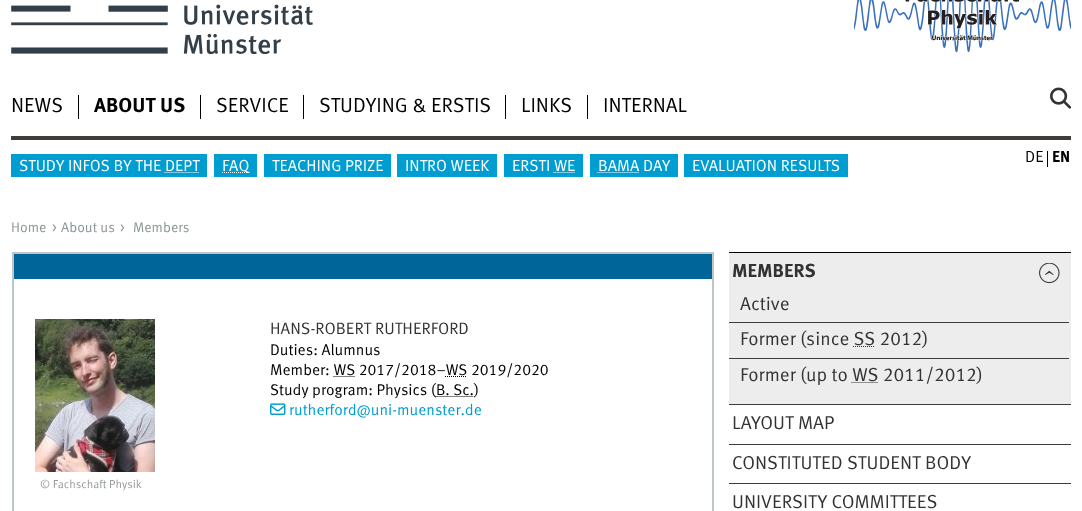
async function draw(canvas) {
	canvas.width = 1082;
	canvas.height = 511;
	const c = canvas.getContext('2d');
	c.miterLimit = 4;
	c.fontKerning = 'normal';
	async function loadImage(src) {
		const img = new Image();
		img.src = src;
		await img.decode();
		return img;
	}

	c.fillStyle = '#fff';
	c.fillRect(0, 0, 1082, 511);
	c.drawImage(await loadImage('img1.png'), 11, 4, 302, 50);
	c.drawImage(await loadImage('img2.png'), 854, 0, 217, 53);
	c.fillStyle = '#423c39';
	c.fillRect(11, 136, 1060, 4);
	c.font = '20.25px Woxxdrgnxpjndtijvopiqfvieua';
	c.fillStyle = '#000';
	c.fillText('NEWS', 11, 112);
	c.fillRect(78, 95, 1, 24);
	c.font = 'bold 20.25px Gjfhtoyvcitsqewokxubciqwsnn';
	c.fillText('ABOUT US', 94, 112);
	c.fillRect(200, 95, 1, 24);
	c.font = '20.25px Woxxdrgnxpjndtijvopiqfvieua';
	c.fillText('SERVICE', 216, 112);
	c.fillRect(303, 95, 1, 24);
	c.fillText('STUDYING & ERSTIS', 319, 112);
	c.fillRect(505, 95, 1, 24);
	c.fillText('LINKS', 521, 112);
	c.fillRect(587, 95, 1, 24);
	c.fillText('INTERNAL', 603, 112);
	c.drawImage(await loadImage('img3.png'), 1050, 87, 22, 22);
	c.font = '16px Woxxdrgnxpjndtijvopiqfvieua';
	c.fillText('DE', 1025, 162);
	c.fillRect(1047, 151, 1, 16);
	c.save();
	c.beginPath();
	c.rect(1021, 151, 50, 16);
	c.clip();
	c.font = 'bold 16px Gjfhtoyvcitsqewokxubciqwsnn';
	c.fillText('EN', 1052, 162);
	c.restore();
	c.fillStyle = '#009dd1';
	c.fillRect(11, 154, 196, 23);
	c.fillStyle = '#fff';
	c.fillText('STUDY INFOS BY THE DEPT', 19, 171);
	c.beginPath();
	c.moveTo(164.5, 172.5);
	c.lineTo(199, 172.5);
	c.strokeStyle = '#fff';
	c.setLineDash([1, 1]);
	c.stroke();
	c.fillStyle = '#009dd1';
	c.fillRect(214, 154, 43, 23);
	c.beginPath();
	c.moveTo(222, 172.5);
	c.lineTo(249, 172.5);
	c.stroke();
	c.fillStyle = '#fff';
	c.fillText('FAQ', 222, 171);
	c.fillStyle = '#009dd1';
	c.fillRect(264, 154, 127, 23);
	c.fillStyle = '#fff';
	c.fillText('TEACHING PRIZE', 272, 171);
	c.fillStyle = '#009dd1';
	c.fillRect(397, 154, 100, 23);
	c.fillStyle = '#fff';
	c.fillText('INTRO WEEK', 405, 171);
	c.fillStyle = '#009dd1';
	c.fillRect(504, 154, 79, 23);
	c.fillStyle = '#fff';
	c.fillText('ERSTI WE', 512, 171);
	c.beginPath();
	c.moveTo(553.5, 172.5);
	c.lineTo(575, 172.5);
	c.stroke();
	c.fillStyle = '#009dd1';
	c.fillRect(590, 154, 88, 23);
	c.fillStyle = '#fff';
	c.fillText('BAMA DAY', 598, 171);
	c.beginPath();
	c.moveTo(597.5, 172.5);
	c.lineTo(639, 172.5);
	c.stroke();
	c.fillStyle = '#009dd1';
	c.fillRect(684, 154, 164, 23);
	c.fillStyle = '#fff';
	c.fillText('EVALUATION RESULTS', 692, 171);
	c.font = '14px Woxxdrgnxpjndtijvopiqfvieua';
	c.fillStyle = '#8c9598';
	for (const [text, x, y] of [
		['Home', 11, 232],
		['>', 52, 232],
		['About us', 61, 232],
		['>', 120, 232],
		['Members', 133, 232],
	]) {
		c.fillText(text, x, y);
	}
	c.strokeStyle = '#bec6c8';
	c.lineWidth = 2;
	c.setLineDash([]);
	c.strokeRect(13, 253, 700, 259);
	c.fillStyle = '#069';
	c.fillRect(14, 254, 698, 25);
	c.font = '16.5px Woxxdrgnxpjndtijvopiqfvieua';
	c.fillStyle = '#333';
	c.fillText('HANS-ROBERT RUTHERFORD', 270, 334);
	c.font = '15.5px Woxxdrgnxpjndtijvopiqfvieua';
	c.fillStyle = '#000';
	c.fillText('Duties: Alumnus', 270, 355);
	c.fillText('Member: WS 2017/2018–WS 2019/2020', 270, 375);
	c.beginPath();
	c.moveTo(333.5, 376.5);
	c.lineTo(355, 376.5);
	c.strokeStyle = '#000';
	c.lineWidth = 1;
	c.setLineDash([1, 1]);
	c.stroke();
	c.beginPath();
	c.moveTo(445, 376.5);
	c.lineTo(467, 376.5);
	c.stroke();
	c.fillText('Study program: Physics (B. Sc.)', 270, 395);
	c.beginPath();
	c.moveTo(435.5, 396.5);
	c.lineTo(473.5, 396.5);
	c.stroke();
	c.drawImage(await loadImage('img4.png'), 270, 403, 16, 12);
	c.fillStyle = '#009dd1';
	c.fillText('rutherford@uni-muenster.de', 289, 415);
	c.drawImage(await loadImage('img5.png'), 35, 319, 120, 153);
	c.font = '11.5px Woxxdrgnxpjndtijvopiqfvieua';
	c.fillStyle = '#969a9b';
	c.fillText('© Fachschaft Physik', 40, 488);
	c.fillStyle = '#ededed';
	c.fillRect(729, 253, 342, 151);
	c.fillStyle = '#000';
	c.fillRect(729, 252, 342, 1);
	c.font = 'bold 18.75px Gjfhtoyvcitsqewokxubciqwsnn';
	c.fillStyle = '#333';
	c.fillText('MEMBERS', 732, 277);
	c.drawImage(await loadImage('img6.png'), 1039, 263, 21, 21);
	c.font = '18.75px Woxxdrgnxpjndtijvopiqfvieua';
	c.fillText('Active', 740, 310);
	c.fillStyle = '#423c39';
	c.fillRect(729, 322, 340, 1);
	c.fillStyle = '#333';
	c.fillText('Former (since SS 2012)', 740, 345);
	c.beginPath();
	c.moveTo(853, 346.5);
	c.lineTo(874.5, 346.5);
	c.strokeStyle = '#333';
	c.stroke();
	c.fillStyle = '#423c39';
	c.fillRect(729, 358, 340, 1);
	c.fillStyle = '#333';
	c.fillText('Former (up to WS 2011/2012)', 740, 381);
	c.beginPath();
	c.moveTo(851.5, 382.5);
	c.lineTo(878, 382.5);
	c.stroke();
	c.fillStyle = '#423c39';
	c.fillRect(729, 404, 342, 1);
	c.fillStyle = '#333';
	c.fillText('LAYOUT MAP', 732, 429);
	c.fillStyle = '#423c39';
	c.fillRect(729, 444, 342, 1);
	c.fillStyle = '#333';
	c.fillText('CONSTITUTED STUDENT BODY', 732, 469);
	c.fillStyle = '#423c39';
	c.fillRect(729, 483, 342, 1);
	c.fillStyle = '#333';
	c.fillText('UNIVERSITY COMMITTEES', 732, 508);
}

draw(document.querySelector('canvas'));
